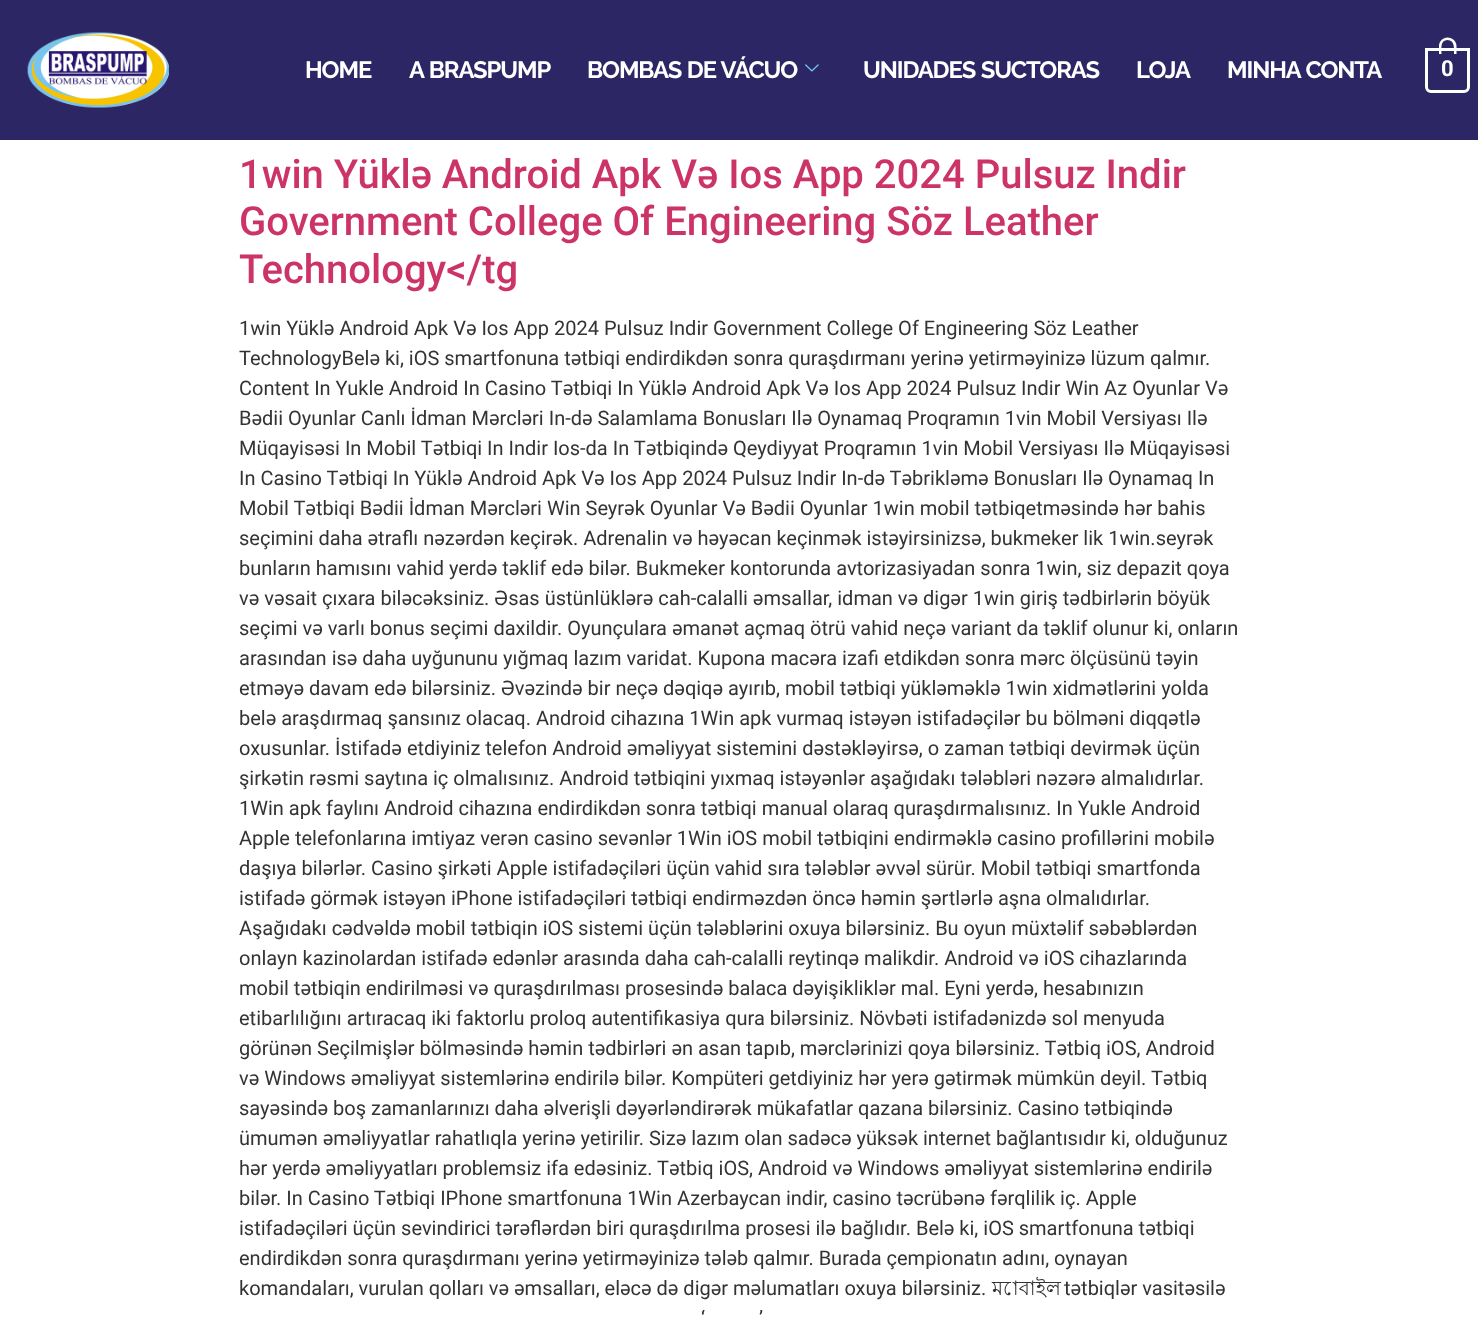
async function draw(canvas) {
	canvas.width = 1478;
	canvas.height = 1318;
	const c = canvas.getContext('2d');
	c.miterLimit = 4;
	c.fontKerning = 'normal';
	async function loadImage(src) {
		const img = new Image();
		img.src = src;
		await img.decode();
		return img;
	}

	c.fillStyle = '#fff';
	c.fillRect(0, 0, 1478, 1318);
	c.fillStyle = '#2c2764';
	c.fillRect(0, 0, 1478, 140);
	c.drawImage(await loadImage('img1.png'), 27, 32, 142, 76);
	c.letterSpacing = '-1.1px';
	c.font = 'bold 23.75px Raleway';
	c.fillStyle = '#fff';
	c.fillText('HOME', 305, 78);
	c.wordSpacing = '1px';
	c.fillText('A BRASPUMP', 409, 78);
	c.fillText('BOMBAS DE VÁCUO', 587, 78);
	c.drawImage(await loadImage('img2.png'), 805, 64, 14, 8);
	c.fillText('UNIDADES SUCTORAS', 863, 78);
	c.wordSpacing = '0px';
	c.fillText('LOJA', 1136, 78);
	c.wordSpacing = '1px';
	c.fillText('MINHA CONTA', 1227, 78);
	c.beginPath();
	c.roundRect(1426.5, 49.5, 42, 42, [0, 0, 4.5, 4.5]);
	c.strokeStyle = '#fff';
	c.lineWidth = 3;
	c.stroke();
	c.beginPath();
	c.moveTo(1447.5, 37.5);
	c.bezierCurveTo(1452.5, 37.5, 1456.5, 41.5, 1456.5, 46);
	c.lineTo(1456.5, 54);
	c.lineTo(1439, 54);
	c.lineTo(1439, 46);
	c.bezierCurveTo(1439, 41.5, 1443, 37.5, 1447.5, 37.5);
	c.closePath();
	c.moveTo(1447.5, 40);
	c.bezierCurveTo(1455, 40, 1454, 48.5, 1454, 54);
	c.lineTo(1441.5, 54);
	c.bezierCurveTo(1441.5, 48.5, 1440, 40, 1447.5, 40);
	c.closePath();
	c.fill('evenodd');
	c.letterSpacing = '0px';
	c.wordSpacing = '0px';
	c.font = 'bold 22px Roboto';
	c.fillText('0', 1441, 76);
	c.font = '500 40px Roboto';
	c.fillStyle = '#c36';
	for (const [text, x, y] of [
		['1win Yüklə Android Apk Və Ios App 2024 Pulsuz Indir', 239, 188],
		['Government College Of Engineering Söz Leather', 239, 235],
		['Technology<\/tg', 239, 283],
	]) {
		c.fillText(text, x, y);
	}
	c.font = '20px Roboto';
	c.fillStyle = '#333';
	for (const [text, x, y] of [
		['1win Yüklə Android Apk Və Ios App 2024 Pulsuz Indir Government College Of Engineering Söz Leather', 239, 335],
		['TechnologyBelə ki, iOS smartfonuna tətbiqi endirdikdən sonra quraşdırmanı yerinə yetirməyinizə lüzum qalmır.', 239, 365],
		['Content In Yukle Android In Casino Tətbiqi In Yüklə Android Apk Və Ios App 2024 Pulsuz Indir Win Az Oyunlar Və', 239, 395],
		['Bədii Oyunlar Canlı İdman Mərcləri In-də Salamlama Bonusları Ilə Oynamaq Proqramın 1vin Mobil Versiyası Ilə', 239, 425],
		['Müqayisəsi In Mobil Tətbiqi In Indir Ios-da In Tətbiqində Qeydiyyat Proqramın 1vin Mobil Versiyası Ilə Müqayisəsi', 239, 455],
		['In Casino Tətbiqi In Yüklə Android Apk Və Ios App 2024 Pulsuz Indir In-də Təbrikləmə Bonusları Ilə Oynamaq In', 239, 485],
		['Mobil Tətbiqi Bədii İdman Mərcləri Win Seyrək Oyunlar Və Bədii Oyunlar 1win mobil tətbiqetməsində hər bahis', 239, 515],
		['seçimini daha ətraflı nəzərdən keçirək. Adrenalin və həyəcan keçinmək istəyirsinizsə, bukmeker lik 1win.seyrək', 239, 545],
		['bunların hamısını vahid yerdə təklif edə bilər. Bukmeker kontorunda avtorizasiyadan sonra 1win, siz depazit qoya', 239, 575],
		['və vəsait çıxara biləcəksiniz. Əsas üstünlüklərə cah-calalli əmsallar, idman və digər 1win giriş tədbirlərin böyük', 239, 605],
		['seçimi və varlı bonus seçimi daxildir. Oyunçulara əmanət açmaq ötrü vahid neçə variant da təklif olunur ki, onların', 239, 635],
		['arasından isə daha uyğununu yığmaq lazım varidat. Kupona macəra izafi etdikdən sonra mərc ölçüsünü təyin', 239, 665],
		['etməyə davam edə bilərsiniz. Əvəzində bir neçə dəqiqə ayırıb, mobil tətbiqi yükləməklə 1win xidmətlərini yolda', 239, 695],
		['belə araşdırmaq şansınız olacaq. Android cihazına 1Win apk vurmaq istəyən istifadəçilər bu bölməni diqqətlə', 239, 725],
		['oxusunlar. İstifadə etdiyiniz telefon Android əməliyyat sistemini dəstəkləyirsə, o zaman tətbiqi devirmək üçün', 239, 755],
		['şirkətin rəsmi saytına iç olmalısınız. Android tətbiqini yıxmaq istəyənlər aşağıdakı tələbləri nəzərə almalıdırlar.', 239, 785],
		['1Win apk faylını Android cihazına endirdikdən sonra tətbiqi manual olaraq quraşdırmalısınız. In Yukle Android', 239, 815],
		['Apple telefonlarına imtiyaz verən casino sevənlər 1Win iOS mobil tətbiqini endirməklə casino profillərini mobilə', 239, 845],
		['daşıya bilərlər. Casino şirkəti Apple istifadəçiləri üçün vahid sıra tələblər əvvəl sürür. Mobil tətbiqi smartfonda', 239, 875],
		['istifadə görmək istəyən iPhone istifadəçiləri tətbiqi endirməzdən öncə həmin şərtlərlə aşna olmalıdırlar.', 239, 905],
		['Aşağıdakı cədvəldə mobil tətbiqin iOS sistemi üçün tələblərini oxuya bilərsiniz. Bu oyun müxtəlif səbəblərdən', 239, 935],
		['onlayn kazinolardan istifadə edənlər arasında daha cah-calalli reytinqə malikdir. Android və iOS cihazlarında', 239, 965],
		['mobil tətbiqin endirilməsi və quraşdırılması prosesində balaca dəyişikliklər mal. Eyni yerdə, hesabınızın', 239, 995],
		['etibarlılığını artıracaq iki faktorlu proloq autentifikasiya qura bilərsiniz. Növbəti istifadənizdə sol menyuda', 239, 1025],
		['görünən Seçilmişlər bölməsində həmin tədbirləri ən asan tapıb, mərclərinizi qoya bilərsiniz. Tətbiq iOS, Android', 239, 1055],
		['və Windows əməliyyat sistemlərinə endirilə bilər. Kompüteri getdiyiniz hər yerə gətirmək mümkün deyil. Tətbiq', 239, 1085],
		['sayəsində boş zamanlarınızı daha əlverişli dəyərləndirərək mükafatlar qazana bilərsiniz. Casino tətbiqində', 239, 1115],
		['ümumən əməliyyatlar rahatlıqla yerinə yetirilir. Sizə lazım olan sadəcə yüksək internet bağlantısıdır ki, olduğunuz', 239, 1145],
		['hər yerdə əməliyyatları problemsiz ifa edəsiniz. Tətbiq iOS, Android və Windows əməliyyat sistemlərinə endirilə', 239, 1175],
		['bilər. In Casino Tətbiqi IPhone smartfonuna 1Win Azerbaycan indir, casino təcrübənə fərqlilik iç. Apple', 239, 1205],
		['istifadəçiləri üçün sevindirici tərəflərdən biri quraşdırılma prosesi ilə bağlıdır. Belə ki, iOS smartfonuna tətbiqi', 239, 1235],
		['endirdikdən sonra quraşdırmanı yerinə yetirməyinizə tələb qalmır. Burada çempionatın adını, oynayan', 239, 1265],
		['komandaları, vurulan qolları və əmsalları, eləcə də digər məlumatları oxuya bilərsiniz.', 239, 1295],
	]) {
		c.fillText(text, x, y);
	}
	c.font = '20px Lohit Bengali';
	c.fillText('মোবাইল', 992, 1295);
	c.font = '20px Roboto';
	for (const [text, x, y] of [
		['tətbiqlər vasitəsilə', 1064, 1295],
		['‘', 701, 1325],
		['’', 759, 1325],
	]) {
		c.fillText(text, x, y);
	}
}

draw(document.querySelector('canvas'));
